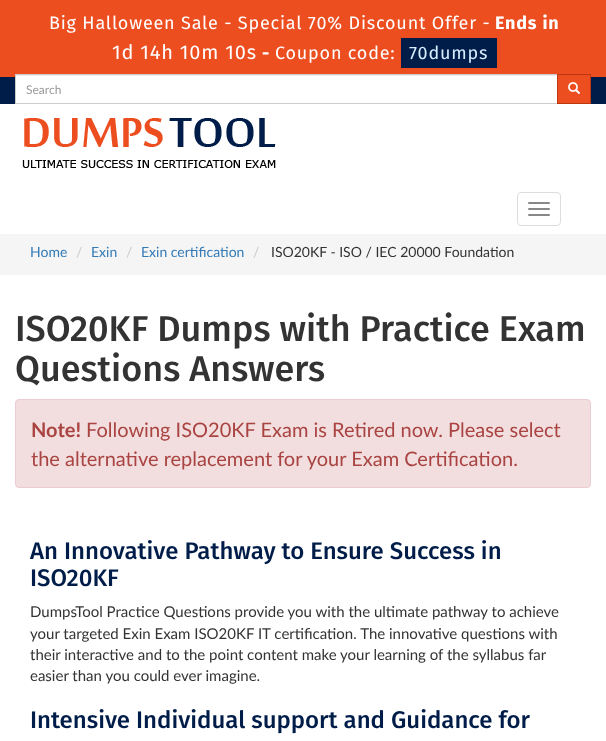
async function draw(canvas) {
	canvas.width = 606;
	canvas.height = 741;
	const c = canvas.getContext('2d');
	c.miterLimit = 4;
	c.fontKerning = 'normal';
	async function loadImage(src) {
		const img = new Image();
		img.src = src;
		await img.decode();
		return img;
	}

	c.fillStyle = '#fff';
	c.fillRect(0, 0, 606, 741);
	c.fillStyle = '#ec4e20';
	c.fillRect(0, 0, 606, 77);
	c.letterSpacing = '0.8px';
	c.font = '18px Fira Sans';
	c.fillStyle = '#fff';
	c.fillText('Big Halloween Sale - Special 70% Discount Offer -', 49, 29);
	c.font = 'bold 18px Fira Sans';
	c.fillText('Ends in', 495, 29);
	c.font = '20px Fira Sans';
	c.fillText('1d 14h 10m 10s', 112, 59);
	c.font = 'bold 18px Fira Sans';
	c.fillText('-', 262, 59);
	c.font = '18px Fira Sans';
	c.fillText('Coupon code:', 275, 59);
	c.fillStyle = '#001d4a';
	c.fillRect(401, 38, 96, 30);
	c.fillStyle = '#d8eeff';
	c.fillText('70dumps', 409, 59);
	for (const [x, y, w, h, color] of [
		[0, 77, 606, 27, '#001d4a'],
		[16, 76, 541, 27, '#fff'],
		[16, 75, 541, 1, '#ececec'],
	]) {
		c.fillStyle = color;
		c.fillRect(x, y, w, h);
	}
	c.strokeStyle = '#ccc';
	c.strokeRect(15.5, 74.5, 542, 29);
	c.letterSpacing = '0px';
	c.font = '12px Lato';
	c.fillStyle = '#999';
	c.fillText('Search', 26, 94);
	c.fillStyle = '#ec4e20';
	c.fillRect(558, 77, 32, 26);
	c.strokeStyle = '#bd3810';
	c.strokeRect(557.5, 74.5, 33, 29);
	c.drawImage(await loadImage('img1.png'), 568, 82, 12, 12);
	c.drawImage(await loadImage('img2.png'), 22, 118, 254, 50);
	c.beginPath();
	c.roundRect(517.5, 192.5, 43, 33, 3.5);
	c.strokeStyle = '#ddd';
	c.stroke();
	c.fillStyle = '#888';
	c.beginPath();
	c.roundRect(528, 202, 22, 2, 1);
	c.fill();
	c.beginPath();
	c.roundRect(528, 208, 22, 2, 1);
	c.fill();
	c.beginPath();
	c.roundRect(528, 214, 22, 2, 1);
	c.fill();
	c.fillStyle = '#f5f5f5';
	c.fillRect(0, 234, 606, 41);
	c.font = '14px Lato';
	c.fillStyle = '#337ab7';
	c.fillText('Home', 30, 257);
	c.fillStyle = '#ccc';
	c.fillText('/', 76, 257);
	c.fillStyle = '#337ab7';
	c.fillText('Exin', 91, 257);
	c.fillStyle = '#ccc';
	c.fillText('/', 126, 257);
	c.fillStyle = '#337ab7';
	c.fillText('Exin certification', 141, 257);
	c.fillStyle = '#ccc';
	c.fillText('/', 253, 257);
	c.fillStyle = '#333';
	c.fillText('ISO20KF - ISO / IEC 20000 Foundation', 271, 257);
	c.font = '500 36px Fira Sans';
	c.fillText('ISO20KF Dumps with Practice Exam', 15, 341);
	c.fillText('Questions Answers', 15, 381);
	c.fillStyle = '#f2dede';
	c.beginPath();
	c.roundRect(15.5, 399.5, 575, 88, 3.5);
	c.fill();
	c.strokeStyle = '#ebccd1';
	c.stroke();
	c.font = 'bold 20px Lato';
	c.fillStyle = '#a94442';
	c.fillText('Note!', 31, 437);
	c.font = '20px Lato';
	c.fillText('Following ISO20KF Exam is Retired now. Please select', 86, 437);
	c.fillText('the alternative replacement for your Exam Certification.', 31, 466);
	c.font = '500 24px Fira Sans';
	c.fillStyle = '#001d4a';
	c.fillText('An Innovative Pathway to Ensure Success in', 30, 559);
	c.fillText('ISO20KF', 30, 586);
	c.font = '15px Lato';
	c.fillStyle = '#333';
	for (const [text, x, y] of [
		['DumpsTool Practice Questions provide you with the ultimate pathway to achieve', 30, 617],
		['your targeted Exin Exam ISO20KF IT certification. The innovative questions with', 30, 639],
		['their interactive and to the point content make your learning of the syllabus far', 30, 660],
		['easier than you could ever imagine.', 30, 681],
	]) {
		c.fillText(text, x, y);
	}
	c.font = '500 24px Fira Sans';
	c.fillStyle = '#001d4a';
	c.fillText('Intensive Individual support and Guidance for', 30, 728);
}

draw(document.querySelector('canvas'));
